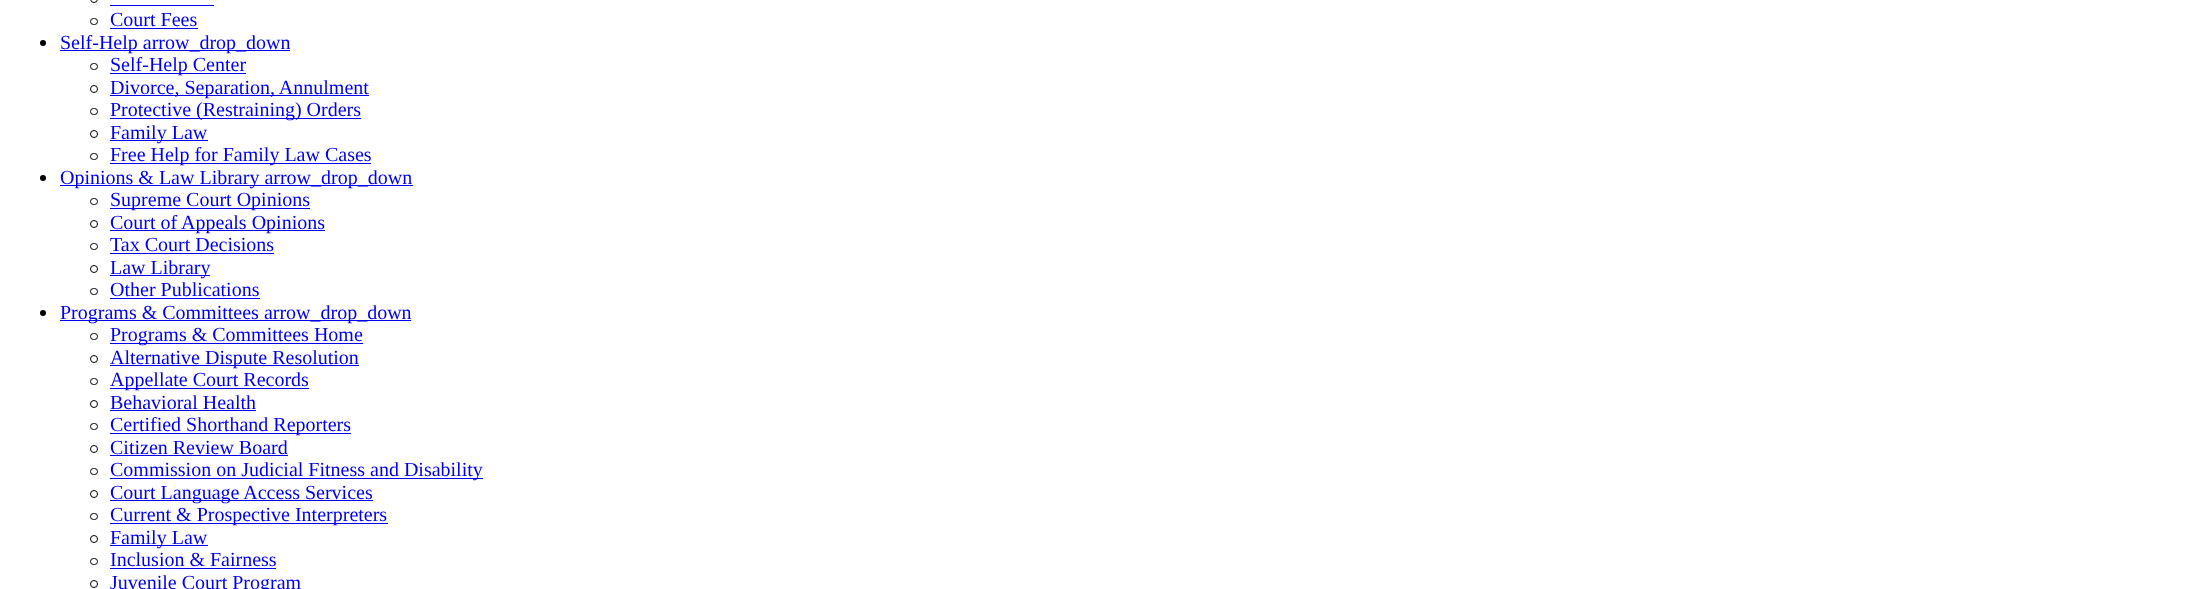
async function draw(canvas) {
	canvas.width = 2199;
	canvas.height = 589;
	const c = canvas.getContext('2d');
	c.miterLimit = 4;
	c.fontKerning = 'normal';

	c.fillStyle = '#fff';
	c.fillRect(0, 0, 2199, 589);
	c.beginPath();
	c.arc(94, -1, 3.5, 0, 2 * Math.PI);
	c.strokeStyle = '#000';
	c.stroke();
	c.fillStyle = '#00e';
	c.fillRect(110, 5, 104, 1);
	c.beginPath();
	c.roundRect(90.5, 18.5, 7, 6, 3);
	c.stroke();
	c.font = '20px Liberation Serif';
	c.fillText('Court Fees', 110, 26);
	c.fillRect(110, 28, 88, 1);
	c.fillStyle = '#000';
	c.beginPath();
	c.arc(43, 43, 3, 0, 2 * Math.PI);
	c.fill();
	c.fillStyle = '#00e';
	c.fillRect(60, 50, 230, 1);
	c.fillText('Self-Help arrow_drop_down', 60, 49);
	c.beginPath();
	c.roundRect(90.5, 63.5, 7, 6, 3);
	c.stroke();
	c.fillRect(110, 73, 136, 1);
	c.fillText('Self-Help Center', 110, 71);
	c.beginPath();
	c.arc(94, 89, 3.5, 0, 2 * Math.PI);
	c.stroke();
	c.fillRect(110, 95, 259, 1);
	c.fillText('Divorce, Separation, Annulment', 110, 94);
	c.beginPath();
	c.roundRect(90.5, 108.5, 7, 6, 3);
	c.stroke();
	c.fillRect(110, 118, 251, 1);
	c.fillText('Protective (Restraining) Orders', 110, 116);
	c.beginPath();
	c.arc(94, 134, 3.5, 0, 2 * Math.PI);
	c.stroke();
	c.fillRect(110, 140, 98, 1);
	c.fillText('Family Law', 110, 139);
	c.beginPath();
	c.roundRect(90.5, 153.5, 7, 6, 3);
	c.stroke();
	c.fillRect(110, 163, 261, 1);
	c.fillText('Free Help for Family Law Cases', 110, 161);
	c.fillStyle = '#000';
	c.beginPath();
	c.arc(43, 178, 3, 0, 2 * Math.PI);
	c.fill();
	c.fillStyle = '#00e';
	c.fillRect(60, 185, 353, 1);
	c.fillText('Opinions & Law Library arrow_drop_down', 60, 184);
	c.beginPath();
	c.roundRect(90.5, 198.5, 7, 6, 3);
	c.stroke();
	c.fillRect(110, 208, 200, 1);
	c.fillText('Supreme Court Opinions', 110, 206);
	c.beginPath();
	c.arc(94, 224, 3.5, 0, 2 * Math.PI);
	c.stroke();
	c.fillRect(110, 230, 215, 1);
	c.fillText('Court of Appeals Opinions', 110, 229);
	c.beginPath();
	c.roundRect(90.5, 243.5, 7, 6, 3);
	c.stroke();
	c.fillText('Tax Court Decisions', 110, 251);
	c.fillRect(110, 253, 164, 1);
	c.beginPath();
	c.arc(94, 269, 3.5, 0, 2 * Math.PI);
	c.stroke();
	c.fillRect(110, 275, 100, 1);
	c.fillText('Law Library', 110, 274);
	c.beginPath();
	c.roundRect(90.5, 288.5, 7, 6, 3);
	c.stroke();
	c.fillText('Other Publications', 110, 296);
	c.fillRect(110, 298, 150, 1);
	c.fillStyle = '#000';
	c.beginPath();
	c.arc(43, 313, 3, 0, 2 * Math.PI);
	c.fill();
	c.fillStyle = '#00e';
	c.fillRect(60, 320, 351, 1);
	c.fillText('Programs & Committees arrow_drop_down', 60, 319);
	c.beginPath();
	c.roundRect(90.5, 333.5, 7, 6, 3);
	c.stroke();
	c.fillRect(110, 343, 253, 1);
	c.fillText('Programs & Committees Home', 110, 341);
	c.beginPath();
	c.arc(94, 359, 3.5, 0, 2 * Math.PI);
	c.stroke();
	c.fillRect(110, 365, 249, 1);
	c.fillText('Alternative Dispute Resolution', 110, 364);
	c.beginPath();
	c.roundRect(90.5, 378.5, 7, 6, 3);
	c.stroke();
	c.fillRect(110, 388, 199, 1);
	c.fillText('Appellate Court Records', 110, 386);
	c.beginPath();
	c.arc(94, 404, 3.5, 0, 2 * Math.PI);
	c.stroke();
	c.fillText('Behavioral Health', 110, 409);
	c.fillRect(110, 410, 146, 1);
	c.beginPath();
	c.roundRect(90.5, 423.5, 7, 6, 3);
	c.stroke();
	c.fillRect(110, 433, 241, 1);
	c.fillText('Certified Shorthand Reporters', 110, 431);
	c.beginPath();
	c.arc(94, 449, 3.5, 0, 2 * Math.PI);
	c.stroke();
	c.fillText('Citizen Review Board', 110, 454);
	c.fillRect(110, 455, 178, 1);
	c.beginPath();
	c.roundRect(90.5, 468.5, 7, 6, 3);
	c.stroke();
	c.fillRect(110, 478, 373, 1);
	c.fillText('Commission on Judicial Fitness and Disability', 110, 476);
	c.beginPath();
	c.arc(94, 494, 3.5, 0, 2 * Math.PI);
	c.stroke();
	c.fillRect(110, 500, 263, 1);
	c.fillText('Court Language Access Services', 110, 499);
	c.beginPath();
	c.roundRect(90.5, 513.5, 7, 6, 3);
	c.stroke();
	c.fillRect(110, 523, 278, 1);
	c.fillText('Current & Prospective Interpreters', 110, 521);
	c.beginPath();
	c.arc(94, 539, 3.5, 0, 2 * Math.PI);
	c.stroke();
	c.fillRect(110, 545, 98, 1);
	c.fillText('Family Law', 110, 544);
	c.beginPath();
	c.roundRect(90.5, 558.5, 7, 6, 3);
	c.stroke();
	c.fillText('Inclusion & Fairness', 110, 566);
	c.fillRect(110, 568, 166, 1);
	c.beginPath();
	c.arc(94, 584, 3.5, 0, 2 * Math.PI);
	c.stroke();
	c.fillText('Juvenile Court Program', 110, 589);
}

draw(document.querySelector('canvas'));
